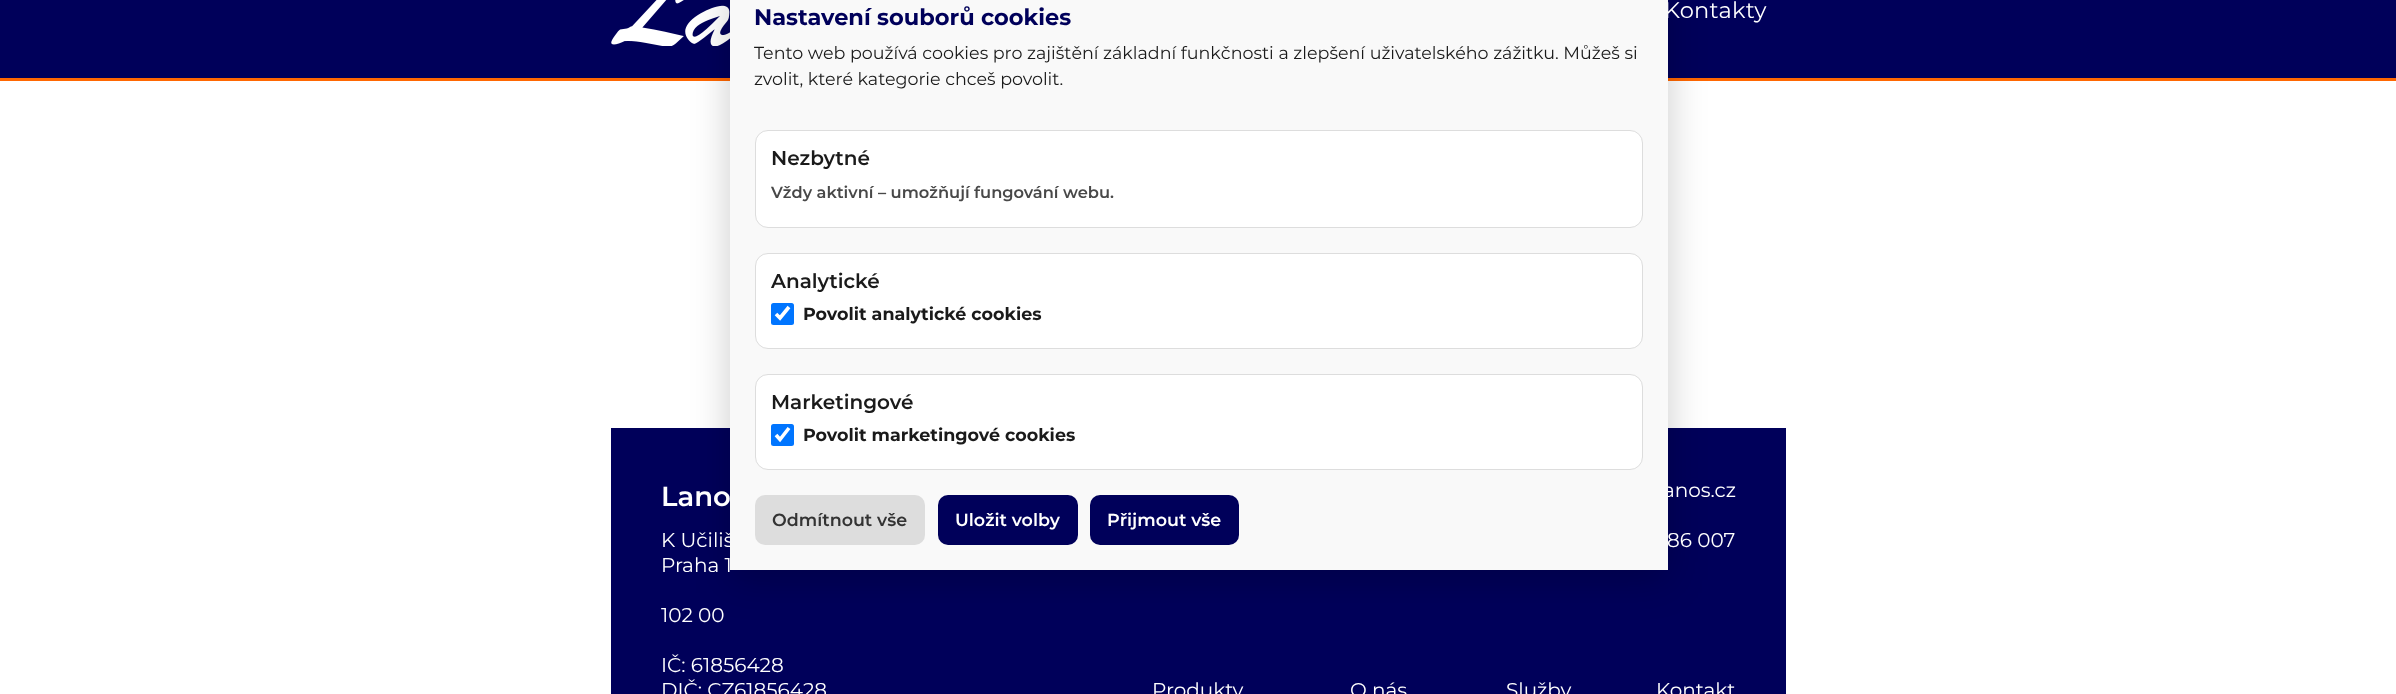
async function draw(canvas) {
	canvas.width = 2396;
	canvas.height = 694;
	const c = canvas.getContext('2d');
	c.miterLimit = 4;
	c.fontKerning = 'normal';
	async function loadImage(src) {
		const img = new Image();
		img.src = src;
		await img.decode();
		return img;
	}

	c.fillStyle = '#fff';
	c.fillRect(0, 0, 2396, 694);
	c.fillStyle = '#00005a';
	c.fillRect(0, 0, 2396, 78);
	c.fillStyle = '#ff6701';
	c.fillRect(0, 78, 2396, 3);
	c.drawImage(await loadImage('img1.png'), 611, 0, 119, 46);
	c.fillStyle = '#00005a';
	c.fillRect(611, 428, 1175, 266);
	c.fillStyle = '#00000033';
	c.filter = 'blur(19px)';
	c.beginPath();
	c.rect(730, -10, 938, 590);
	c.fill();
	c.filter = 'none';
	c.letterSpacing = '0.25px';
	c.font = '22.5px Montserrat';
	c.fillStyle = '#fff';
	c.fillText('Kontakty', 1664, 18);
	c.letterSpacing = '0px';
	c.font = '20px Montserrat';
	c.fillText('K Učiliš', 661, 547);
	c.fillText('anos.cz', 1663, 497);
	c.fillStyle = '#f9f9f9';
	c.fillRect(730, 0, 938, 570);
	c.font = 'bold 22.5px Montserrat';
	c.fillStyle = '#00005a';
	c.fillText('Nastavení souborů cookies', 754, 25);
	c.font = '17.5px Montserrat';
	c.fillStyle = '#1a1a1a';
	c.fillText('Tento web používá cookies pro zajištění základní funkčnosti a zlepšení uživatelského zážitku. Můžeš si', 754, 59);
	c.fillText('zvolit, které kategorie chceš povolit.', 754, 85);
	c.fillStyle = '#fff';
	c.beginPath();
	c.roundRect(755.5, 130.5, 887, 97, 12.5);
	c.fill();
	c.strokeStyle = '#ddd';
	c.stroke();
	c.font = '600 20px Montserrat';
	c.fillStyle = '#1a1a1a';
	c.fillText('Nezbytné', 771, 165);
	c.font = '600 16.25px Montserrat';
	c.fillStyle = '#484848';
	c.fillText('Vždy aktivní – umožňují fungování webu.', 771, 198);
	c.fillStyle = '#fff';
	c.beginPath();
	c.roundRect(755.5, 253.5, 887, 95, 12.5);
	c.fill();
	c.stroke();
	c.font = '600 20px Montserrat';
	c.fillStyle = '#1a1a1a';
	c.fillText('Analytické', 771, 288);
	c.fillStyle = '#0075ff';
	c.beginPath();
	c.roundRect(771, 303, 23, 22, 2.5);
	c.fill();
	c.beginPath();
	c.moveTo(776, 314);
	c.lineTo(780, 318);
	c.lineTo(789, 307);
	c.strokeStyle = '#fff';
	c.lineWidth = 3.6;
	c.stroke();
	c.font = 'bold 17.5px Montserrat';
	c.fillStyle = '#1a1a1a';
	c.fillText('Povolit analytické cookies', 803, 320);
	c.fillStyle = '#fff';
	c.beginPath();
	c.roundRect(755.5, 374.5, 887, 95, 12.5);
	c.fill();
	c.strokeStyle = '#ddd';
	c.lineWidth = 1;
	c.stroke();
	c.font = '600 20px Montserrat';
	c.fillStyle = '#1a1a1a';
	c.fillText('Marketingové', 771, 409);
	c.fillStyle = '#0075ff';
	c.beginPath();
	c.roundRect(771, 424, 23, 22, 2.5);
	c.fill();
	c.beginPath();
	c.moveTo(776, 435);
	c.lineTo(780, 439.5);
	c.lineTo(789, 428);
	c.strokeStyle = '#fff';
	c.lineWidth = 3.6;
	c.stroke();
	c.font = 'bold 17.5px Montserrat';
	c.fillStyle = '#1a1a1a';
	c.fillText('Povolit marketingové cookies', 803, 441);
	c.fillStyle = '#ddd';
	c.beginPath();
	c.roundRect(755, 495, 170, 50, 10);
	c.fill();
	c.font = '600 17.5px Montserrat';
	c.fillStyle = '#333';
	c.fillText('Odmítnout vše', 772, 526);
	c.fillStyle = '#00005a';
	c.beginPath();
	c.roundRect(938, 495, 140, 50, 10);
	c.fill();
	c.fillStyle = '#fff';
	c.fillText('Uložit volby', 955, 526);
	c.fillStyle = '#00005a';
	c.beginPath();
	c.roundRect(1090, 495, 149, 50, 10);
	c.fill();
	c.fillStyle = '#fff';
	c.fillText('Přijmout vše', 1107, 526);
	c.font = '600 27.5px Montserrat';
	c.fillText('Lano', 661, 506);
	c.font = '20px Montserrat';
	for (const [text, x, y] of [
		['Praha 1', 661, 572],
		['102 00', 661, 622],
		['IČ: 61856428', 661, 672],
		['DIČ: CZ61856428', 661, 697],
		['86 007', 1667, 547],
		['Produkty', 1152, 697],
		['O nás', 1350, 697],
		['Služby', 1506, 697],
		['Kontakt', 1656, 697],
	]) {
		c.fillText(text, x, y);
	}
}

draw(document.querySelector('canvas'));
